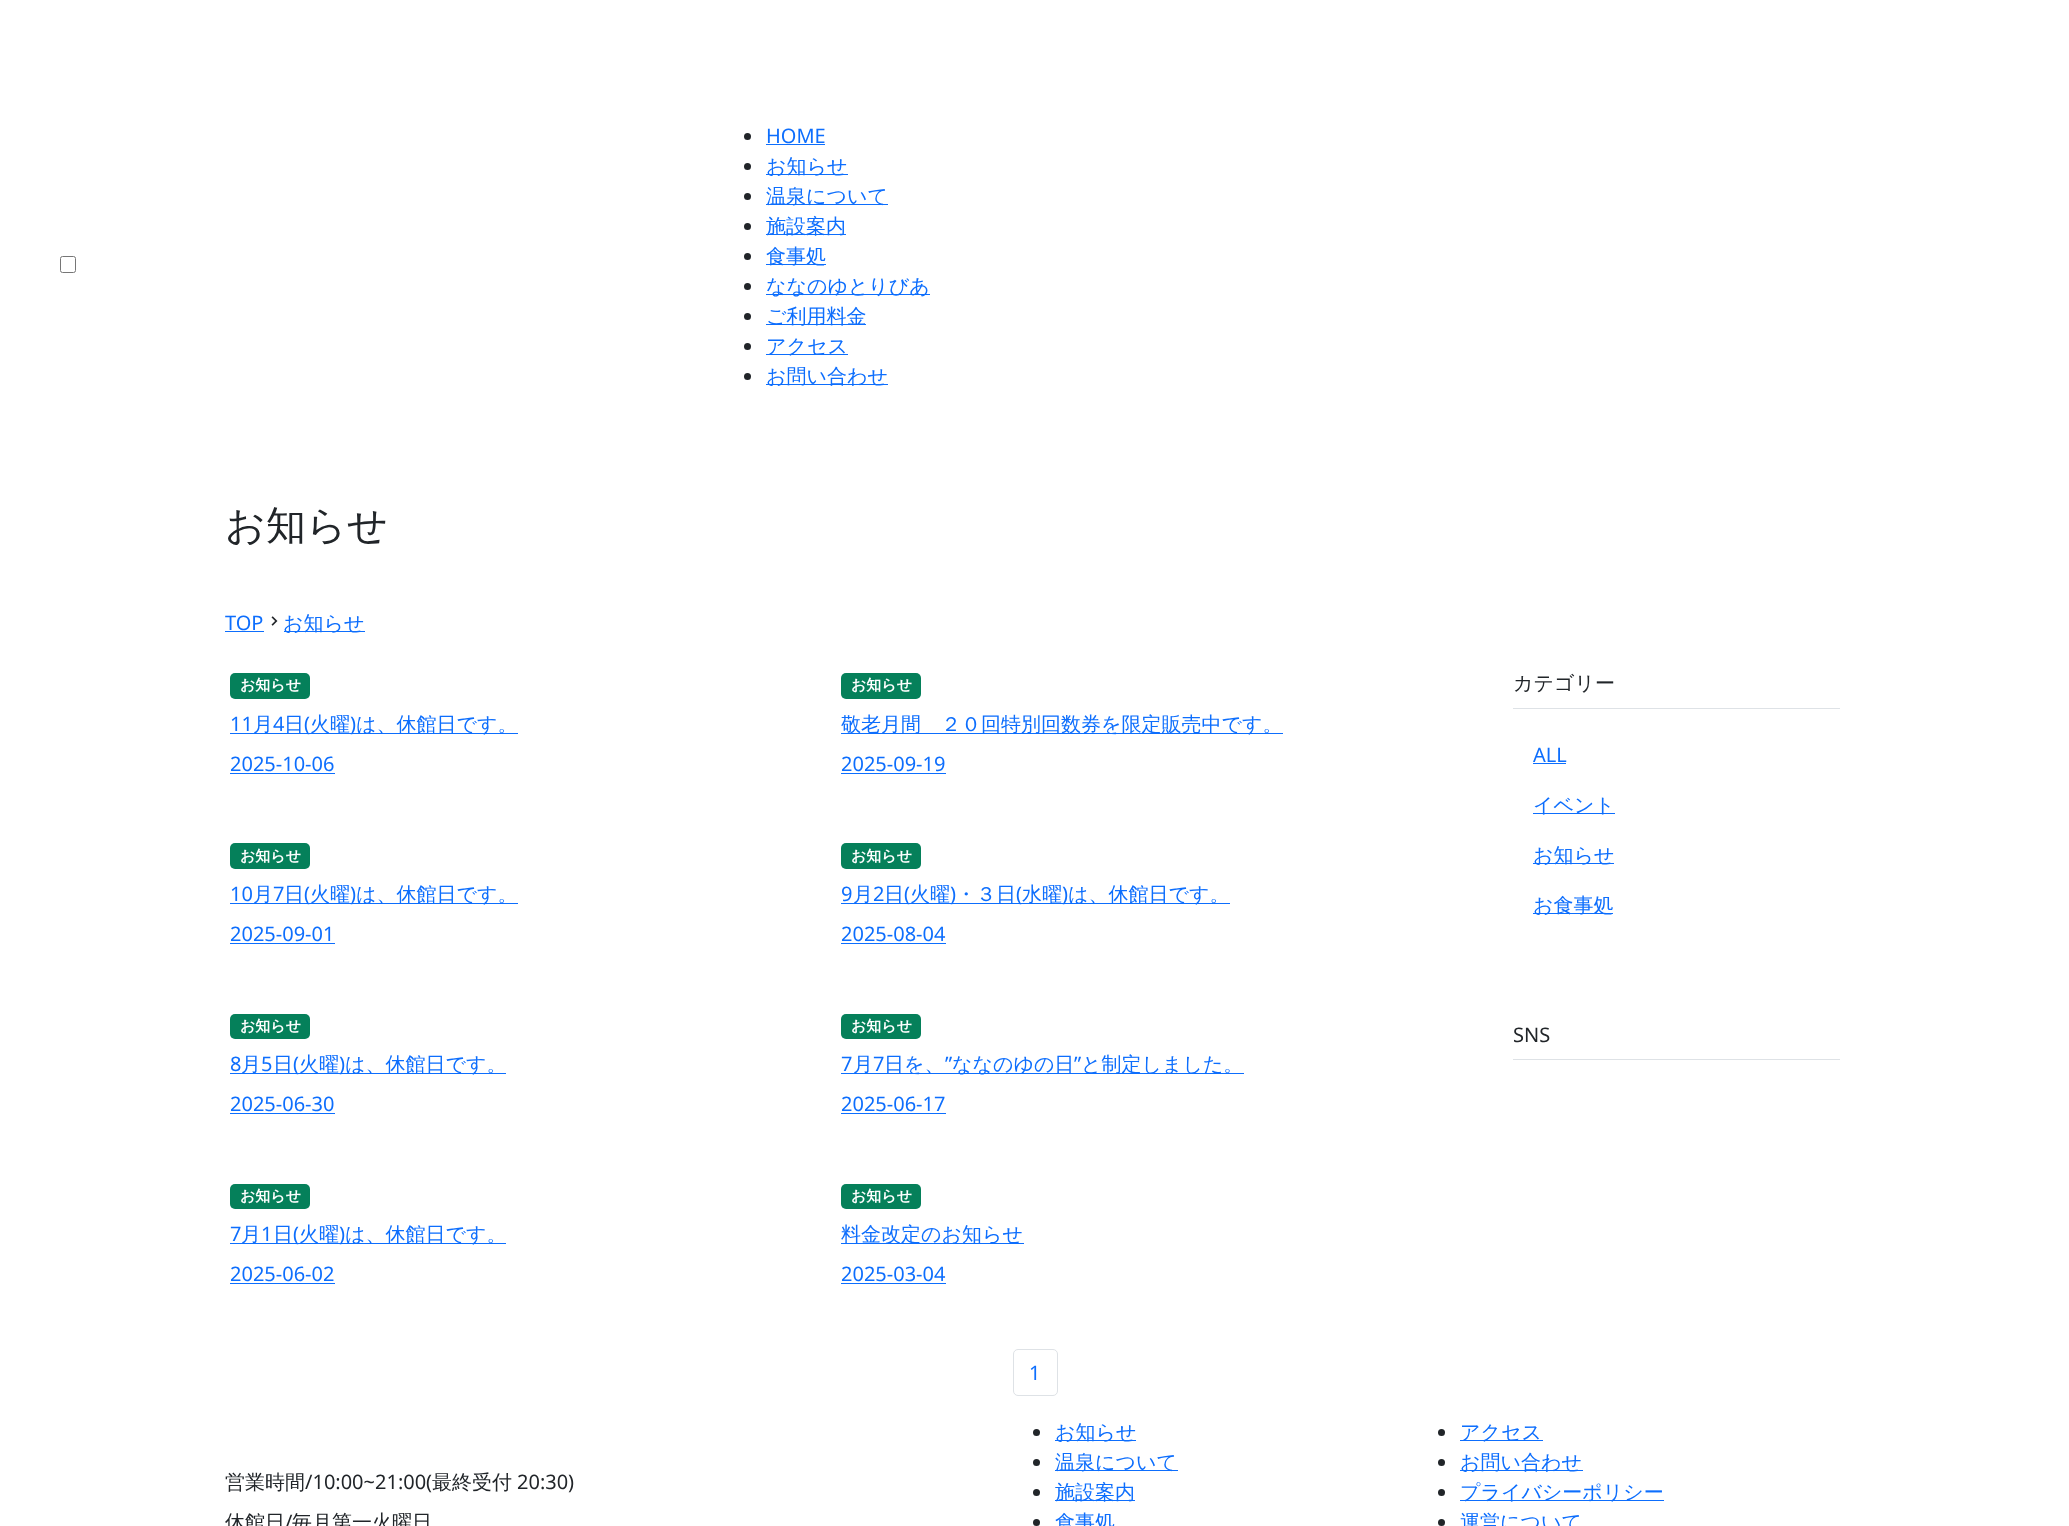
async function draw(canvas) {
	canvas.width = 2069;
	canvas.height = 1526;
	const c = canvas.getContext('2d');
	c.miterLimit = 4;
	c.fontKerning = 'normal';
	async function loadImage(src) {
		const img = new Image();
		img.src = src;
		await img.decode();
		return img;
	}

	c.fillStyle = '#fff';
	c.fillRect(0, 0, 2069, 1526);
	c.beginPath();
	c.roundRect(60.5, 256.5, 15, 16, 2);
	c.strokeStyle = '#767676';
	c.stroke();
	c.fillStyle = '#212529';
	c.beginPath();
	c.arc(747.5, 136.5, 3.5, 0, 2 * Math.PI);
	c.fill();
	c.font = '20px Noto Sans';
	c.fillStyle = '#0d6efd';
	c.fillText('HOME', 766, 143);
	c.fillRect(766, 144, 59, 1);
	c.fillStyle = '#212529';
	c.beginPath();
	c.arc(747.5, 166.5, 3.5, 0, 2 * Math.PI);
	c.fill();
	c.fillStyle = '#0d6efd';
	c.fillRect(766, 174, 82, 1);
	c.font = '500 20px WenQuanYi Zen Hei';
	c.fillText('お知らせ', 766, 173);
	c.fillStyle = '#212529';
	c.beginPath();
	c.arc(747.5, 196.5, 3.5, 0, 2 * Math.PI);
	c.fill();
	c.fillStyle = '#0d6efd';
	c.fillRect(766, 204, 122, 1);
	c.fillText('温泉について', 766, 203);
	c.fillStyle = '#212529';
	c.beginPath();
	c.arc(747.5, 226.5, 3.5, 0, 2 * Math.PI);
	c.fill();
	c.fillStyle = '#0d6efd';
	c.fillRect(766, 234, 80, 1);
	c.fillText('施設案内', 766, 233);
	c.fillStyle = '#212529';
	c.beginPath();
	c.arc(747.5, 256.5, 3.5, 0, 2 * Math.PI);
	c.fill();
	c.fillStyle = '#0d6efd';
	c.fillRect(766, 264, 60, 1);
	c.fillText('食事処', 766, 263);
	c.fillStyle = '#212529';
	c.beginPath();
	c.arc(747.5, 286.5, 3.5, 0, 2 * Math.PI);
	c.fill();
	c.fillStyle = '#0d6efd';
	c.fillRect(766, 294, 164, 1);
	c.fillText('ななのゆとりびあ', 766, 293);
	c.fillStyle = '#212529';
	c.beginPath();
	c.arc(747.5, 316.5, 3.5, 0, 2 * Math.PI);
	c.fill();
	c.fillStyle = '#0d6efd';
	c.fillRect(766, 324, 100, 1);
	c.fillText('ご利用料金', 766, 323);
	c.fillStyle = '#212529';
	c.beginPath();
	c.arc(747.5, 346.5, 3.5, 0, 2 * Math.PI);
	c.fill();
	c.fillStyle = '#0d6efd';
	c.fillRect(766, 354, 82, 1);
	c.fillText('アクセス', 766, 353);
	c.fillStyle = '#212529';
	c.beginPath();
	c.arc(747.5, 376.5, 3.5, 0, 2 * Math.PI);
	c.fill();
	c.fillStyle = '#0d6efd';
	c.fillRect(766, 384, 122, 1);
	c.fillText('お問い合わせ', 766, 383);
	c.font = '500 40px WenQuanYi Zen Hei';
	c.fillStyle = '#212529';
	c.fillText('お知らせ', 225, 539);
	c.font = '20px Noto Sans';
	c.fillStyle = '#0d6efd';
	c.fillText('TOP', 225, 630);
	c.fillRect(225, 631, 39, 1);
	c.drawImage(await loadImage('img1.png'), 271, 616, 7, 10);
	c.fillRect(284, 631, 81, 1);
	c.font = '500 20px WenQuanYi Zen Hei';
	c.fillText('お知らせ', 283, 630);
	c.fillStyle = '#05805a';
	c.beginPath();
	c.roundRect(230, 673, 80, 26, 5);
	c.fill();
	c.font = 'bold 15px WenQuanYi Zen Hei';
	c.fillStyle = '#fff';
	c.fillText('お知らせ', 240, 690);
	c.font = '20px Noto Sans';
	c.fillStyle = '#0d6efd';
	c.fillText('11', 230, 731);
	c.fillRect(230, 733, 288, 1);
	c.font = '500 20px WenQuanYi Zen Hei';
	c.fillText('月', 253, 731);
	c.font = '20px Noto Sans';
	c.fillText('4', 273, 731);
	c.font = '500 20px WenQuanYi Zen Hei';
	c.fillText('日 火曜 は、休館日です。', 284, 731);
	c.font = '20px Noto Sans';
	for (const [text, x, y] of [
		['(', 304, 731],
		[')', 350, 731],
		['2025-10-06', 230, 771],
	]) {
		c.fillText(text, x, y);
	}
	c.fillRect(230, 773, 105, 1);
	c.fillStyle = '#05805a';
	c.beginPath();
	c.roundRect(841, 673, 80, 26, 5);
	c.fill();
	c.font = 'bold 15px WenQuanYi Zen Hei';
	c.fillStyle = '#fff';
	c.fillText('お知らせ', 851, 690);
	c.fillStyle = '#0d6efd';
	c.fillRect(841, 733, 442, 1);
	c.font = '500 20px WenQuanYi Zen Hei';
	c.fillText('敬老月間　２０回特別回数券を限定販売中です。', 841, 731);
	c.font = '20px Noto Sans';
	c.fillText('2025-09-19', 841, 771);
	c.fillRect(841, 773, 105, 1);
	c.fillStyle = '#05805a';
	c.beginPath();
	c.roundRect(230, 843, 80, 26, 5);
	c.fill();
	c.font = 'bold 15px WenQuanYi Zen Hei';
	c.fillStyle = '#fff';
	c.fillText('お知らせ', 240, 861);
	c.font = '20px Noto Sans';
	c.fillStyle = '#0d6efd';
	c.fillText('10', 230, 901);
	c.fillRect(230, 903, 288, 1);
	c.font = '500 20px WenQuanYi Zen Hei';
	c.fillText('月', 253, 901);
	c.font = '20px Noto Sans';
	c.fillText('7', 273, 901);
	c.font = '500 20px WenQuanYi Zen Hei';
	c.fillText('日 火曜 は、休館日です。', 284, 901);
	c.font = '20px Noto Sans';
	for (const [text, x, y] of [
		['(', 304, 901],
		[')', 350, 901],
		['2025-09-01', 230, 941],
	]) {
		c.fillText(text, x, y);
	}
	c.fillRect(230, 943, 105, 1);
	c.fillStyle = '#05805a';
	c.beginPath();
	c.roundRect(841, 843, 80, 26, 5);
	c.fill();
	c.font = 'bold 15px WenQuanYi Zen Hei';
	c.fillStyle = '#fff';
	c.fillText('お知らせ', 851, 861);
	c.font = '20px Noto Sans';
	c.fillStyle = '#0d6efd';
	c.fillText('9', 841, 901);
	c.fillRect(841, 903, 389, 1);
	c.font = '500 20px WenQuanYi Zen Hei';
	c.fillText('月', 853, 901);
	c.font = '20px Noto Sans';
	c.fillText('2', 873, 901);
	c.font = '500 20px WenQuanYi Zen Hei';
	c.fillText('日 火曜 ・３日 水曜 は、休館日です。', 884, 901);
	c.font = '20px Noto Sans';
	for (const [text, x, y] of [
		['(', 904, 901],
		[')', 950, 901],
		['(', 1016, 901],
		[')', 1062, 901],
		['2025-08-04', 841, 941],
	]) {
		c.fillText(text, x, y);
	}
	c.fillRect(841, 943, 105, 1);
	c.fillStyle = '#05805a';
	c.beginPath();
	c.roundRect(230, 1014, 80, 25, 5);
	c.fill();
	c.font = 'bold 15px WenQuanYi Zen Hei';
	c.fillStyle = '#fff';
	c.fillText('お知らせ', 240, 1031);
	c.font = '20px Noto Sans';
	c.fillStyle = '#0d6efd';
	c.fillText('8', 230, 1071);
	c.fillRect(230, 1073, 276, 1);
	c.font = '500 20px WenQuanYi Zen Hei';
	c.fillText('月', 241, 1071);
	c.font = '20px Noto Sans';
	c.fillText('5', 261, 1071);
	c.font = '500 20px WenQuanYi Zen Hei';
	c.fillText('日 火曜 は、休館日です。', 273, 1071);
	c.font = '20px Noto Sans';
	for (const [text, x, y] of [
		['(', 293, 1071],
		[')', 339, 1071],
		['2025-06-30', 230, 1111],
	]) {
		c.fillText(text, x, y);
	}
	c.fillRect(230, 1113, 105, 1);
	c.fillStyle = '#05805a';
	c.beginPath();
	c.roundRect(841, 1014, 80, 25, 5);
	c.fill();
	c.font = 'bold 15px WenQuanYi Zen Hei';
	c.fillStyle = '#fff';
	c.fillText('お知らせ', 851, 1031);
	c.font = '20px Noto Sans';
	c.fillStyle = '#0d6efd';
	c.fillText('7', 841, 1071);
	c.fillRect(841, 1073, 403, 1);
	c.font = '500 20px WenQuanYi Zen Hei';
	c.fillText('月', 853, 1071);
	c.font = '20px Noto Sans';
	c.fillText('7', 873, 1071);
	c.font = '500 20px WenQuanYi Zen Hei';
	c.fillText('日を、', 884, 1071);
	c.font = '20px Noto Sans';
	c.fillText('”', 945, 1071);
	c.font = '500 20px WenQuanYi Zen Hei';
	c.fillText('ななのゆの日', 952, 1071);
	c.font = '20px Noto Sans';
	c.fillText('”', 1074, 1071);
	c.font = '500 20px WenQuanYi Zen Hei';
	c.fillText('と制定しました。', 1081, 1071);
	c.font = '20px Noto Sans';
	c.fillText('2025-06-17', 841, 1111);
	c.fillRect(841, 1113, 105, 1);
	c.fillStyle = '#05805a';
	c.beginPath();
	c.roundRect(230, 1184, 80, 25, 5);
	c.fill();
	c.font = 'bold 15px WenQuanYi Zen Hei';
	c.fillStyle = '#fff';
	c.fillText('お知らせ', 240, 1201);
	c.font = '20px Noto Sans';
	c.fillStyle = '#0d6efd';
	c.fillText('7', 230, 1241);
	c.fillRect(230, 1243, 276, 1);
	c.font = '500 20px WenQuanYi Zen Hei';
	c.fillText('月', 241, 1241);
	c.font = '20px Noto Sans';
	c.fillText('1', 261, 1241);
	c.font = '500 20px WenQuanYi Zen Hei';
	c.fillText('日 火曜 は、休館日です。', 273, 1241);
	c.font = '20px Noto Sans';
	for (const [text, x, y] of [
		['(', 293, 1241],
		[')', 339, 1241],
		['2025-06-02', 230, 1281],
	]) {
		c.fillText(text, x, y);
	}
	c.fillRect(230, 1283, 105, 1);
	c.fillStyle = '#05805a';
	c.beginPath();
	c.roundRect(841, 1184, 80, 25, 5);
	c.fill();
	c.font = 'bold 15px WenQuanYi Zen Hei';
	c.fillStyle = '#fff';
	c.fillText('お知らせ', 851, 1201);
	c.fillStyle = '#0d6efd';
	c.fillRect(841, 1243, 183, 1);
	c.font = '500 20px WenQuanYi Zen Hei';
	c.fillText('料金改定のお知らせ', 841, 1241);
	c.font = '20px Noto Sans';
	c.fillText('2025-03-04', 841, 1281);
	c.fillRect(841, 1283, 105, 1);
	c.fillStyle = '#dee2e6';
	c.fillRect(1513, 708, 327, 1);
	c.font = '500 20px WenQuanYi Zen Hei';
	c.fillStyle = '#212529';
	c.fillText('カテゴリー', 1513, 690);
	c.font = '20px Noto Sans';
	c.fillStyle = '#0d6efd';
	c.fillText('ALL', 1533, 762);
	c.fillRect(1533, 763, 33, 1);
	c.fillRect(1533, 813, 82, 1);
	c.font = '500 20px WenQuanYi Zen Hei';
	c.fillText('イベント', 1533, 812);
	c.fillRect(1533, 863, 81, 1);
	c.fillText('お知らせ', 1533, 862);
	c.fillRect(1533, 913, 80, 1);
	c.fillText('お食事処', 1533, 912);
	c.fillStyle = '#dee2e6';
	c.fillRect(1513, 1059, 327, 1);
	c.font = '20px Noto Sans';
	c.fillStyle = '#212529';
	c.fillText('SNS', 1513, 1042);
	c.beginPath();
	c.roundRect(1013.5, 1349.5, 44, 46, 4.5);
	c.strokeStyle = '#dee2e6';
	c.stroke();
	c.fillStyle = '#0d6efd';
	c.fillText('1', 1029, 1380);
	c.font = '500 20px WenQuanYi Zen Hei';
	c.fillStyle = '#212529';
	c.fillText('営業時間', 225, 1489);
	c.font = '20px Noto Sans';
	c.fillText('/10:00~21:00(', 305, 1489);
	c.font = '500 20px WenQuanYi Zen Hei';
	c.fillText('最終受付', 432, 1489);
	c.font = '20px Noto Sans';
	c.fillText('20:30)', 517, 1489);
	c.font = '500 20px WenQuanYi Zen Hei';
	c.fillText('休館日', 225, 1529);
	c.font = '20px Noto Sans';
	c.fillText('/', 285, 1529);
	c.font = '500 20px WenQuanYi Zen Hei';
	c.fillText('毎月第一火曜日', 292, 1529);
	c.beginPath();
	c.arc(1036.5, 1432.5, 3.5, 0, 2 * Math.PI);
	c.fill();
	c.fillStyle = '#0d6efd';
	c.fillRect(1055, 1440, 81, 1);
	c.fillText('お知らせ', 1055, 1439);
	c.fillStyle = '#212529';
	c.beginPath();
	c.arc(1036.5, 1462.5, 3.5, 0, 2 * Math.PI);
	c.fill();
	c.fillStyle = '#0d6efd';
	c.fillRect(1055, 1470, 123, 1);
	c.fillText('温泉について', 1055, 1469);
	c.fillStyle = '#212529';
	c.beginPath();
	c.arc(1036.5, 1492.5, 3.5, 0, 2 * Math.PI);
	c.fill();
	c.fillStyle = '#0d6efd';
	c.fillRect(1055, 1500, 80, 1);
	c.fillText('施設案内', 1055, 1499);
	c.fillStyle = '#212529';
	c.beginPath();
	c.arc(1036.5, 1522.5, 3.5, 0, 2 * Math.PI);
	c.fill();
	c.fillStyle = '#0d6efd';
	c.fillText('食事処', 1055, 1529);
	c.fillStyle = '#212529';
	c.beginPath();
	c.arc(1441.5, 1432.5, 3.5, 0, 2 * Math.PI);
	c.fill();
	c.fillStyle = '#0d6efd';
	c.fillRect(1460, 1440, 83, 1);
	c.fillText('アクセス', 1460, 1439);
	c.fillStyle = '#212529';
	c.beginPath();
	c.arc(1441.5, 1462.5, 3.5, 0, 2 * Math.PI);
	c.fill();
	c.fillStyle = '#0d6efd';
	c.fillRect(1460, 1470, 123, 1);
	c.fillText('お問い合わせ', 1460, 1469);
	c.fillStyle = '#212529';
	c.beginPath();
	c.arc(1441.5, 1492.5, 3.5, 0, 2 * Math.PI);
	c.fill();
	c.fillStyle = '#0d6efd';
	c.fillRect(1460, 1500, 204, 1);
	c.fillText('プライバシーポリシー', 1460, 1499);
	c.fillStyle = '#212529';
	c.beginPath();
	c.arc(1441.5, 1522.5, 3.5, 0, 2 * Math.PI);
	c.fill();
	c.fillStyle = '#0d6efd';
	c.fillText('運営について', 1460, 1529);
}

draw(document.querySelector('canvas'));
